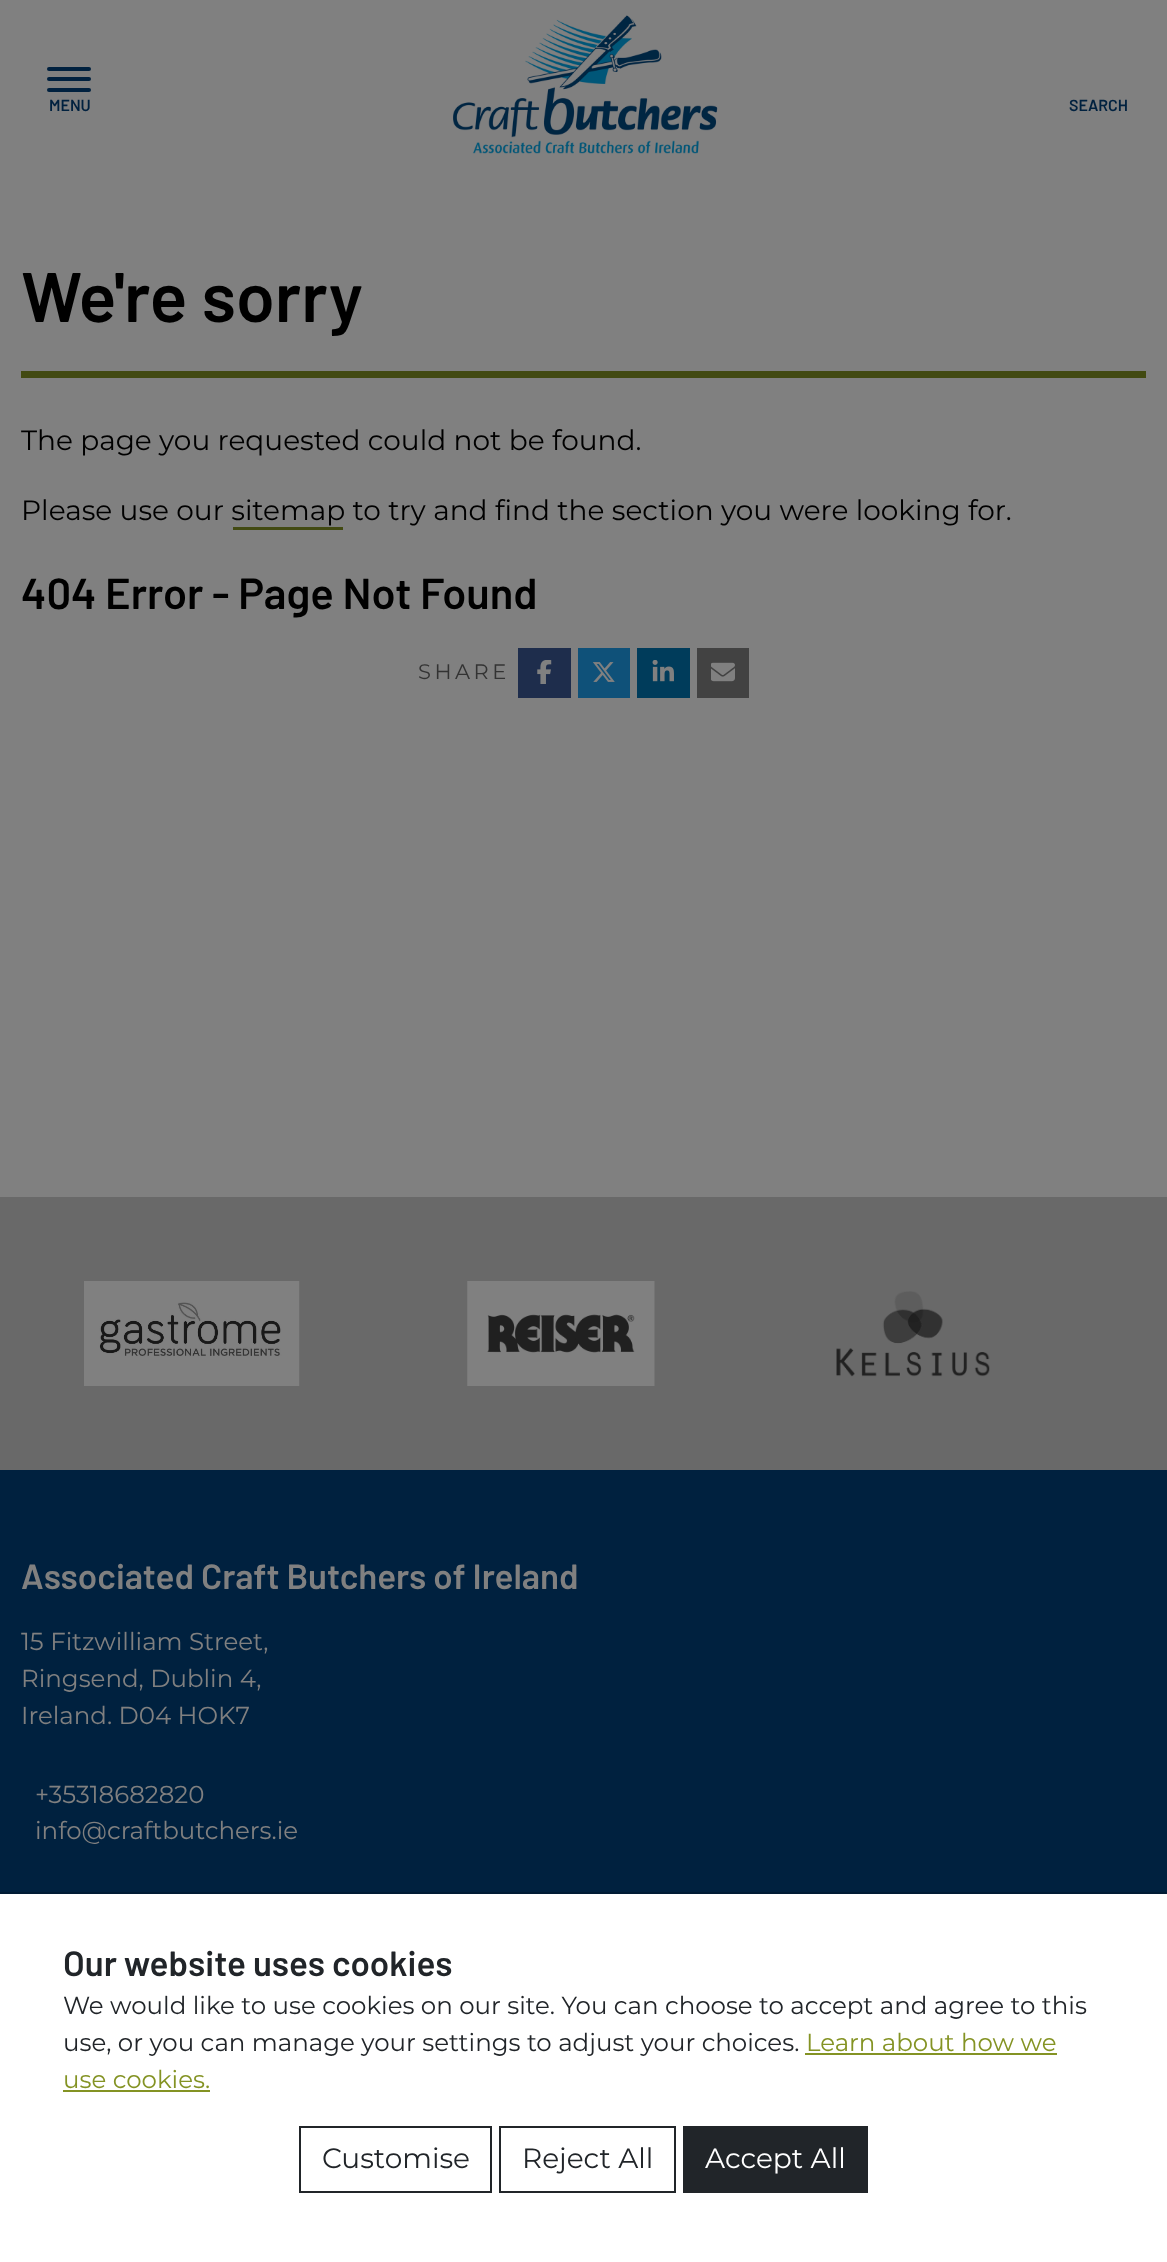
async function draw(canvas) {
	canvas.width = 1167;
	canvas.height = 2262;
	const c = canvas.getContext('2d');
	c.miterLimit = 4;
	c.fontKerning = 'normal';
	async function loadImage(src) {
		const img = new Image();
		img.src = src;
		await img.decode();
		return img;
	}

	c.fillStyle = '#00213f';
	c.fillRect(0, 0, 1167, 2262);
	c.fillStyle = '#808080';
	c.fillRect(0, 0, 1167, 1197);
	c.fillStyle = '#00213f';
	c.beginPath();
	c.roundRect(47, 67, 44, 4, 2);
	c.fill();
	c.beginPath();
	c.roundRect(47, 77, 44, 4, 2);
	c.fill();
	c.beginPath();
	c.roundRect(47, 88, 44, 4, 2);
	c.fill();
	c.font = '600 16px Barlow';
	c.fillText('MENU', 49, 111);
	c.drawImage(await loadImage('img1.png'), 452, 15, 266, 139);
	c.fillText('SEARCH', 1069, 111);
	c.fillStyle = '#424a12';
	c.fillRect(21, 371, 1125, 7);
	c.font = '600 70px Barlow';
	c.fillStyle = '#000';
	c.fillText('We\'re sorry', 21, 322);
	c.font = '28px Montserrat';
	c.fillText('The page you requested could not be found.', 21, 450);
	c.fillText('Please use our sitemap to try and find the section you were looking for.', 21, 520);
	c.fillStyle = '#424a12';
	c.fillRect(233, 527, 110, 3);
	c.font = '600 43.4px Barlow';
	c.fillStyle = '#000';
	c.fillText('404 Error - Page Not Found', 21, 609);
	c.letterSpacing = '3.5px';
	c.font = '21px Montserrat';
	c.fillStyle = '#333';
	c.fillText('SHARE', 418, 679);
	c.fillStyle = '#1e2d4c';
	c.fillRect(518, 648, 53, 50);
	c.drawImage(await loadImage('img2.png'), 537, 660, 15, 24);
	c.fillStyle = '#0f5179';
	c.fillRect(578, 648, 52, 50);
	c.drawImage(await loadImage('img3.png'), 592, 662, 23, 20);
	c.fillStyle = '#003c5b';
	c.fillRect(637, 648, 53, 50);
	c.drawImage(await loadImage('img4.png'), 652, 660, 22, 22);
	c.fillStyle = '#424242';
	c.fillRect(697, 648, 52, 50);
	c.drawImage(await loadImage('img5.png'), 711, 662, 24, 20);
	c.fillStyle = '#696969';
	c.fillRect(0, 1197, 1167, 273);
	c.drawImage(await loadImage('img6.png'), 84, 1281, 216, 105);
	c.drawImage(await loadImage('img7.png'), 467, 1281, 188, 105);
	c.drawImage(await loadImage('img8.png'), 836, 1291, 154, 86);
	c.letterSpacing = '0px';
	c.font = '600 35px Barlow';
	c.fillStyle = '#808080';
	c.fillText('Associated Craft Butchers of Ireland', 21, 1589);
	c.font = '24.5px Montserrat';
	for (const [text, x, y] of [
		['15 Fitzwilliam Street,', 21, 1650],
		['Ringsend, Dublin 4,', 21, 1687],
		['Ireland. D04 HOK7', 21, 1724],
		['+35318682820', 35, 1803],
		['info@craftbutchers.ie', 35, 1839],
	]) {
		c.fillText(text, x, y);
	}
	c.fillStyle = '#fff';
	c.fillRect(0, 1894, 1167, 368);
	c.fillStyle = '#001b34';
	c.fillRect(0, 1892, 1167, 2);
	c.font = '600 35px Barlow';
	c.fillStyle = '#212529';
	c.fillText('Our website uses cookies', 63, 1976);
	c.font = '24.5px Montserrat';
	c.fillText('We would like to use cookies on our site. You can choose to accept and agree to this', 63, 2014);
	c.fillText('use, or you can manage your settings to adjust your choices.', 63, 2051);
	c.fillStyle = '#849324';
	c.fillText('Learn about how we', 806, 2051);
	c.fillRect(805, 2053, 252, 2);
	c.fillText('use cookies.', 63, 2088);
	c.fillRect(63, 2090, 147, 2);
	c.strokeStyle = '#212529';
	c.lineWidth = 2;
	c.strokeRect(300, 2127, 191, 65);
	c.font = '28px Montserrat';
	c.fillStyle = '#212529';
	c.fillText('Customise', 322, 2168);
	c.strokeRect(500, 2127, 175, 65);
	c.fillText('Reject All', 522, 2168);
	c.fillRect(683, 2126, 185, 67);
	c.fillStyle = '#fff';
	c.fillText('Accept All', 705, 2168);
}

draw(document.querySelector('canvas'));
